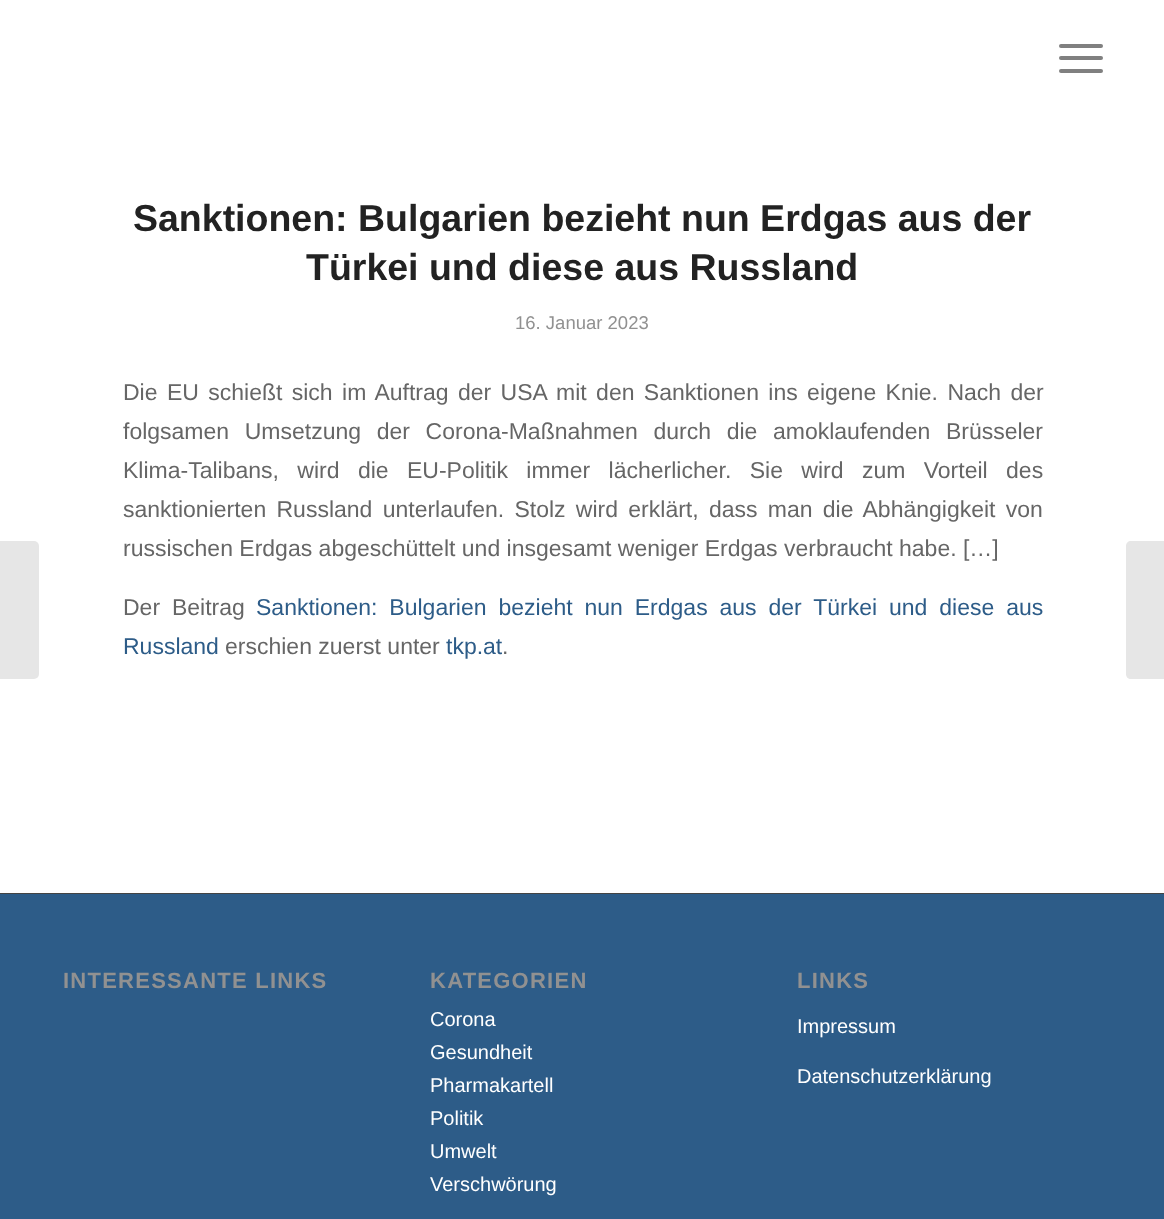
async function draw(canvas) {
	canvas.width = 1164;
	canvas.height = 1219;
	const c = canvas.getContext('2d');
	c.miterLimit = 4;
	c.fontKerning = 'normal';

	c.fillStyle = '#fff';
	c.fillRect(0, 0, 1164, 1219);
	c.fillStyle = '#808080';
	c.beginPath();
	c.roundRect(1059, 56, 44, 4, 2);
	c.fill();
	c.beginPath();
	c.roundRect(1059, 44, 44, 4, 2);
	c.fill();
	c.beginPath();
	c.roundRect(1059, 69, 44, 4, 2);
	c.fill();
	c.fillStyle = '#e6e6e6';
	c.beginPath();
	c.roundRect(0, 541, 39, 138, [0, 5, 5, 0]);
	c.fill();
	c.font = 'bold 37.5px Liberation Sans';
	c.fillStyle = '#222';
	c.fillText('Sanktionen: Bulgarien bezieht nun Erdgas aus der', 133, 231);
	c.fillText('Türkei und diese aus Russland', 306, 280);
	c.font = '18.5px Liberation Sans';
	c.fillStyle = '#919191';
	c.fillText('16. Januar 2023', 515, 329);
	c.wordSpacing = '3px';
	c.font = '23px Liberation Sans';
	c.fillStyle = '#666';
	c.fillText('Die EU schießt sich im Auftrag der USA mit den Sanktionen ins eigene Knie. Nach der', 123, 400);
	c.wordSpacing = '9.25px';
	c.fillText('folgsamen Umsetzung der Corona-Maßnahmen durch die amoklaufenden Brüsseler', 123, 439);
	c.wordSpacing = '12px';
	c.fillText('Klima-Talibans, wird die EU-Politik immer lächerlicher. Sie wird zum Vorteil des', 123, 478);
	c.wordSpacing = '3.9px';
	c.fillText('sanktionierten Russland unterlaufen. Stolz wird erklärt, dass man die Abhängigkeit von', 123, 517);
	c.wordSpacing = '0px';
	c.fillText('russischen Erdgas abgeschüttelt und insgesamt weniger Erdgas verbraucht habe. […]', 123, 556);
	c.wordSpacing = '5.5px';
	c.fillText('Der Beitrag', 123, 615);
	c.fillStyle = '#2d5c88';
	c.fillText('Sanktionen: Bulgarien bezieht nun Erdgas aus der Türkei und diese aus', 256, 615);
	c.wordSpacing = '0px';
	c.fillText('Russland', 123, 654);
	c.fillStyle = '#666';
	c.fillText('erschien zuerst unter', 225, 654);
	c.fillStyle = '#2d5c88';
	c.fillText('tkp.at', 446, 654);
	c.fillStyle = '#666';
	c.fillText('.', 502, 654);
	c.fillStyle = '#2d5c88';
	c.fillRect(0, 894, 1164, 325);
	c.fillStyle = '#444';
	c.fillRect(0, 893, 1164, 1);
	c.letterSpacing = '1.25px';
	c.font = 'bold 22px Liberation Sans';
	c.fillStyle = '#919191';
	c.fillText('INTERESSANTE LINKS', 63, 988);
	c.fillText('KATEGORIEN', 430, 988);
	c.letterSpacing = '0px';
	c.font = '20px Liberation Sans';
	c.fillStyle = '#fff';
	for (const [text, x, y] of [
		['Corona', 430, 1026],
		['Gesundheit', 430, 1059],
		['Pharmakartell', 430, 1092],
		['Politik', 430, 1125],
		['Umwelt', 430, 1158],
		['Verschwörung', 430, 1191],
	]) {
		c.fillText(text, x, y);
	}
	c.letterSpacing = '1.25px';
	c.font = 'bold 22px Liberation Sans';
	c.fillStyle = '#919191';
	c.fillText('LINKS', 797, 988);
	c.letterSpacing = '0px';
	c.font = '20px Liberation Sans';
	c.fillStyle = '#fff';
	c.fillText('Impressum', 797, 1033);
	c.fillText('Datenschutzerklärung', 797, 1083);
	c.fillStyle = '#e6e6e6';
	c.beginPath();
	c.moveTo(1131, 541);
	c.lineTo(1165, 541);
	c.lineTo(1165, 679);
	c.lineTo(1131, 679);
	c.bezierCurveTo(1128, 679, 1126, 677, 1126, 674);
	c.lineTo(1126, 546);
	c.bezierCurveTo(1126, 543, 1128, 541, 1131, 541);
	c.closePath();
	c.fill();
}

draw(document.querySelector('canvas'));
